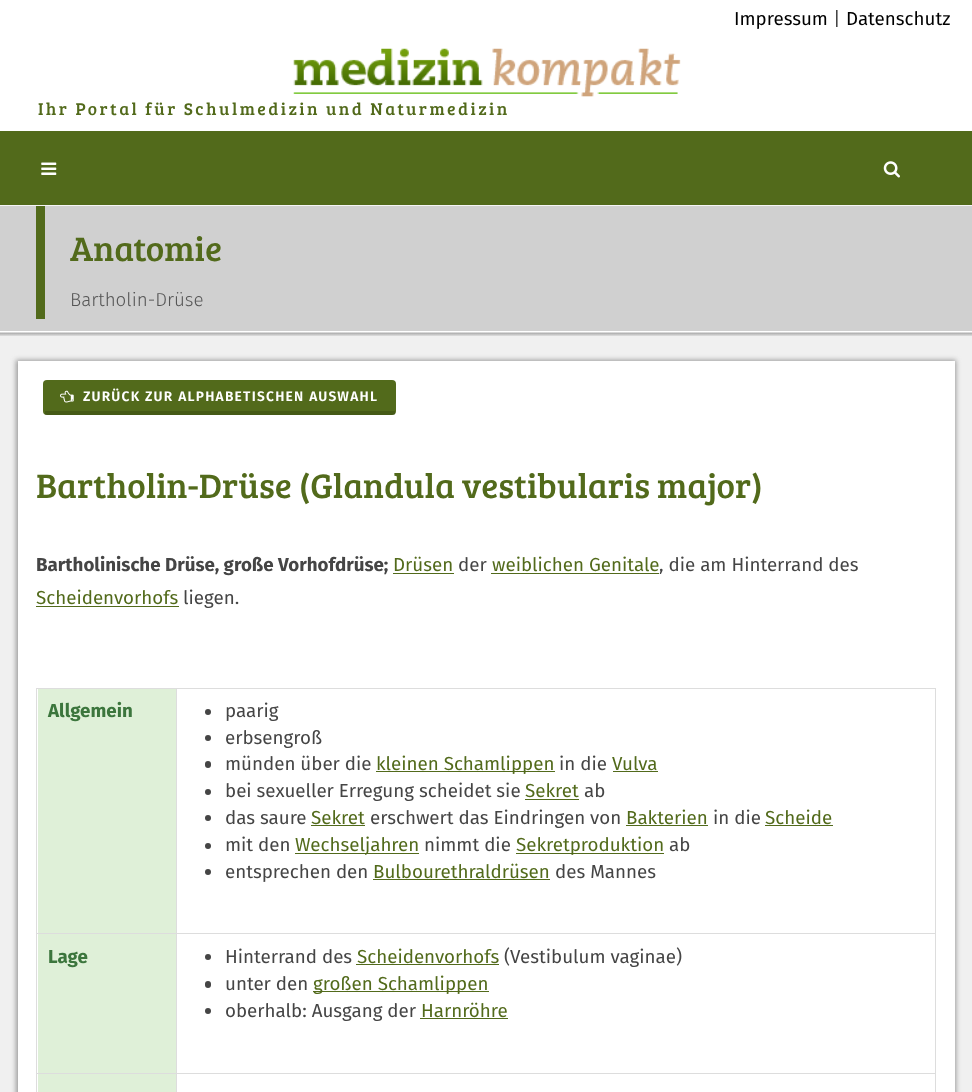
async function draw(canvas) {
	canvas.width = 972;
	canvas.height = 1092;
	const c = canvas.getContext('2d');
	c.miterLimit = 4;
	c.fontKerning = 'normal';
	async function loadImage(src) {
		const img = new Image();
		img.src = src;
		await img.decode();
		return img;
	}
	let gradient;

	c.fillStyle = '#fff';
	c.fillRect(0, 0, 972, 1092);
	c.fillStyle = '#f5f5f5';
	c.fillRect(0, 205, 972, 1);
	c.font = '18.75px Fira Sans';
	c.fillStyle = '#000';
	c.fillText('Impressum', 734, 25);
	c.fillStyle = '#454545';
	c.fillText('|', 833, 25);
	c.fillStyle = '#000';
	c.fillText('Datenschutz', 846, 25);
	c.drawImage(await loadImage('img1.png'), 293, 48, 388, 49);
	c.letterSpacing = '2.5px';
	c.font = '17.5px Bree Serif';
	c.fillStyle = '#526a1b';
	c.fillText('Ihr Portal für Schulmedizin und Naturmedizin', 38, 115);
	c.fillRect(0, 131, 972, 74);
	c.drawImage(await loadImage('img2.png'), 41, 162, 16, 13);
	c.drawImage(await loadImage('img3.png'), 883, 161, 17, 17);
	c.fillStyle = '#d0d0d0';
	c.fillRect(0, 206, 972, 125);
	c.fillStyle = '#526a1b';
	c.fillRect(36, 206, 9, 113);
	c.letterSpacing = '0px';
	c.font = '35px Bree Serif';
	c.fillText('Anatomie', 70, 261);
	c.font = '300 18.75px Fira Sans';
	c.fillStyle = '#555';
	c.fillText('Bartholin-Drüse', 70, 306);
	gradient = c.createLinearGradient(486, 329, 486, 333);
	gradient.addColorStop(0, '#9a9a9a');
	gradient.addColorStop(1, '#e0e0e0');
	c.fillStyle = gradient;
	c.fillRect(0, 332, 972, 1);
	gradient = c.createLinearGradient(486, 332, 486, 336);
	gradient.addColorStop(0, '#9a9a9a');
	gradient.addColorStop(1, '#e0e0e0');
	c.fillStyle = gradient;
	c.fillRect(0, 333, 972, 3);
	c.fillStyle = '#f0f0f0';
	c.fillRect(0, 336, 972, 756);
	c.fillStyle = '#9a9a9a';
	c.filter = 'blur(2.5px)';
	c.beginPath();
	c.rect(16, 360, 940, 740);
	c.fill();
	c.filter = 'none';
	c.fillStyle = '#fff';
	c.fillRect(18, 361, 937, 731);
	c.fillStyle = '#526a1b';
	c.beginPath();
	c.roundRect(43, 380, 353, 35, 4);
	c.fill();
	c.fillStyle = '#00000026';
	c.fillRect(45, 411, 350, 4);
	c.drawImage(await loadImage('img4.png'), 60, 390, 14, 13);
	c.letterSpacing = '1.25px';
	c.font = '600 13.75px Fira Sans';
	c.fillStyle = '#fff';
	c.fillText('ZURÜCK ZUR ALPHABETISCHEN AUSWAHL', 83, 401);
	c.letterSpacing = '0px';
	c.font = '35px Bree Serif';
	c.fillStyle = '#526a1b';
	c.fillText('Bartholin-Drüse (Glandula vestibularis major)', 36, 498);
	c.font = 'bold 18.75px Fira Sans';
	c.fillStyle = '#454545';
	c.fillText('Bartholinische Drüse, große Vorhofdrüse;', 36, 571);
	c.font = '18.75px Fira Sans';
	c.fillStyle = '#526a1b';
	c.fillText('Drüsen', 393, 571);
	c.fillRect(393, 573, 61, 1);
	c.fillStyle = '#454545';
	c.fillText('der', 458, 571);
	c.fillStyle = '#526a1b';
	c.fillText('weiblichen Genitale', 492, 571);
	c.fillRect(491, 573, 168, 1);
	c.fillStyle = '#454545';
	c.fillText(', die am Hinterrand des', 659, 571);
	c.fillStyle = '#526a1b';
	c.fillText('Scheidenvorhofs', 36, 604);
	c.fillRect(36, 606, 143, 1);
	c.fillStyle = '#454545';
	c.fillText('liegen.', 183, 604);
	for (const [x, y, w, h, color] of [
		[36, 688, 900, 1, '#ddd'],
		[935, 688, 1, 404, '#ddd'],
		[36, 688, 1, 404, '#ddd'],
		[38, 689, 138, 244, '#dff0d8'],
	]) {
		c.fillStyle = color;
		c.fillRect(x, y, w, h);
	}
	c.font = 'bold 18.75px Fira Sans';
	c.fillStyle = '#3c763d';
	c.fillText('Allgemein', 48, 717);
	for (const [x, y, w, h, color] of [
		[176, 933, 760, 1, '#ddd'],
		[176, 1073, 760, 1, '#ddd'],
		[176, 1073, 1, 19, '#ddd'],
		[36, 1073, 142, 1, '#ddd'],
		[176, 933, 1, 141, '#ddd'],
		[36, 933, 142, 1, '#ddd'],
		[176, 688, 1, 246, '#ddd'],
	]) {
		c.fillStyle = color;
		c.fillRect(x, y, w, h);
	}
	c.fillStyle = '#454545';
	c.beginPath();
	c.arc(208, 712, 3, 0, 2 * Math.PI);
	c.fill();
	c.font = '18.75px Fira Sans';
	c.fillText('paarig', 225, 717);
	c.beginPath();
	c.arc(208, 738, 3, 0, 2 * Math.PI);
	c.fill();
	c.fillText('erbsengroß', 225, 744);
	c.beginPath();
	c.roundRect(205, 761, 6, 7, 3);
	c.fill();
	c.fillText('münden über die', 225, 770);
	c.fillStyle = '#526a1b';
	c.fillRect(376, 771, 179, 1);
	c.fillText('kleinen Schamlippen', 376, 770);
	c.fillStyle = '#454545';
	c.fillText('in die', 559, 770);
	c.fillStyle = '#526a1b';
	c.fillText('Vulva', 612, 770);
	c.fillRect(613, 771, 45, 1);
	c.fillStyle = '#454545';
	c.beginPath();
	c.arc(208, 792, 3, 0, 2 * Math.PI);
	c.fill();
	c.fillText('bei sexueller Erregung scheidet sie', 225, 797);
	c.fillStyle = '#526a1b';
	c.fillText('Sekret', 525, 797);
	c.fillRect(525, 799, 54, 1);
	c.fillStyle = '#454545';
	c.fillText('ab', 584, 797);
	c.beginPath();
	c.arc(208, 818, 3, 0, 2 * Math.PI);
	c.fill();
	c.fillText('das saure', 225, 824);
	c.fillStyle = '#526a1b';
	c.fillText('Sekret', 311, 824);
	c.fillRect(311, 825, 54, 1);
	c.fillStyle = '#454545';
	c.fillText('erschwert das Eindringen von', 370, 824);
	c.fillStyle = '#526a1b';
	c.fillText('Bakterien', 626, 824);
	c.fillRect(626, 825, 82, 1);
	c.fillStyle = '#454545';
	c.fillText('in die', 713, 824);
	c.fillStyle = '#526a1b';
	c.fillText('Scheide', 765, 824);
	c.fillRect(765, 825, 68, 1);
	c.fillStyle = '#454545';
	c.beginPath();
	c.arc(208, 846, 3, 0, 2 * Math.PI);
	c.fill();
	c.fillText('mit den', 225, 851);
	c.fillStyle = '#526a1b';
	c.fillRect(295, 853, 124, 1);
	c.fillText('Wechseljahren', 295, 851);
	c.fillStyle = '#454545';
	c.fillText('nimmt die', 424, 851);
	c.fillStyle = '#526a1b';
	c.fillRect(516, 853, 148, 1);
	c.fillText('Sekretproduktion', 516, 851);
	c.fillStyle = '#454545';
	c.fillText('ab', 669, 851);
	c.beginPath();
	c.arc(208, 872, 3, 0, 2 * Math.PI);
	c.fill();
	c.fillText('entsprechen den', 225, 878);
	c.fillStyle = '#526a1b';
	c.fillText('Bulbourethraldrüsen', 373, 878);
	c.fillRect(373, 879, 177, 1);
	c.fillStyle = '#454545';
	c.fillText('des Mannes', 555, 878);
	c.fillStyle = '#dff0d8';
	c.fillRect(38, 934, 138, 139);
	c.font = 'bold 18.75px Fira Sans';
	c.fillStyle = '#3c763d';
	c.fillText('Lage', 48, 963);
	c.fillStyle = '#454545';
	c.beginPath();
	c.arc(208, 957, 3, 0, 2 * Math.PI);
	c.fill();
	c.font = '18.75px Fira Sans';
	c.fillText('Hinterrand des', 225, 963);
	c.fillStyle = '#526a1b';
	c.fillText('Scheidenvorhofs', 357, 963);
	c.fillRect(356, 964, 143, 1);
	c.fillStyle = '#454545';
	c.fillText('(Vestibulum vaginae)', 504, 963);
	c.beginPath();
	c.roundRect(205, 981, 6, 7, 3);
	c.fill();
	c.fillText('unter den', 225, 990);
	c.fillStyle = '#526a1b';
	c.fillRect(313, 991, 176, 1);
	c.fillText('großen Schamlippen', 313, 990);
	c.fillStyle = '#454545';
	c.beginPath();
	c.arc(208, 1011, 3, 0, 2 * Math.PI);
	c.fill();
	c.fillText('oberhalb: Ausgang der', 225, 1017);
	c.fillStyle = '#526a1b';
	c.fillText('Harnröhre', 421, 1017);
	c.fillRect(420, 1018, 88, 1);
	c.fillStyle = '#dff0d8';
	c.fillRect(38, 1074, 138, 18);
}

draw(document.querySelector('canvas'));
